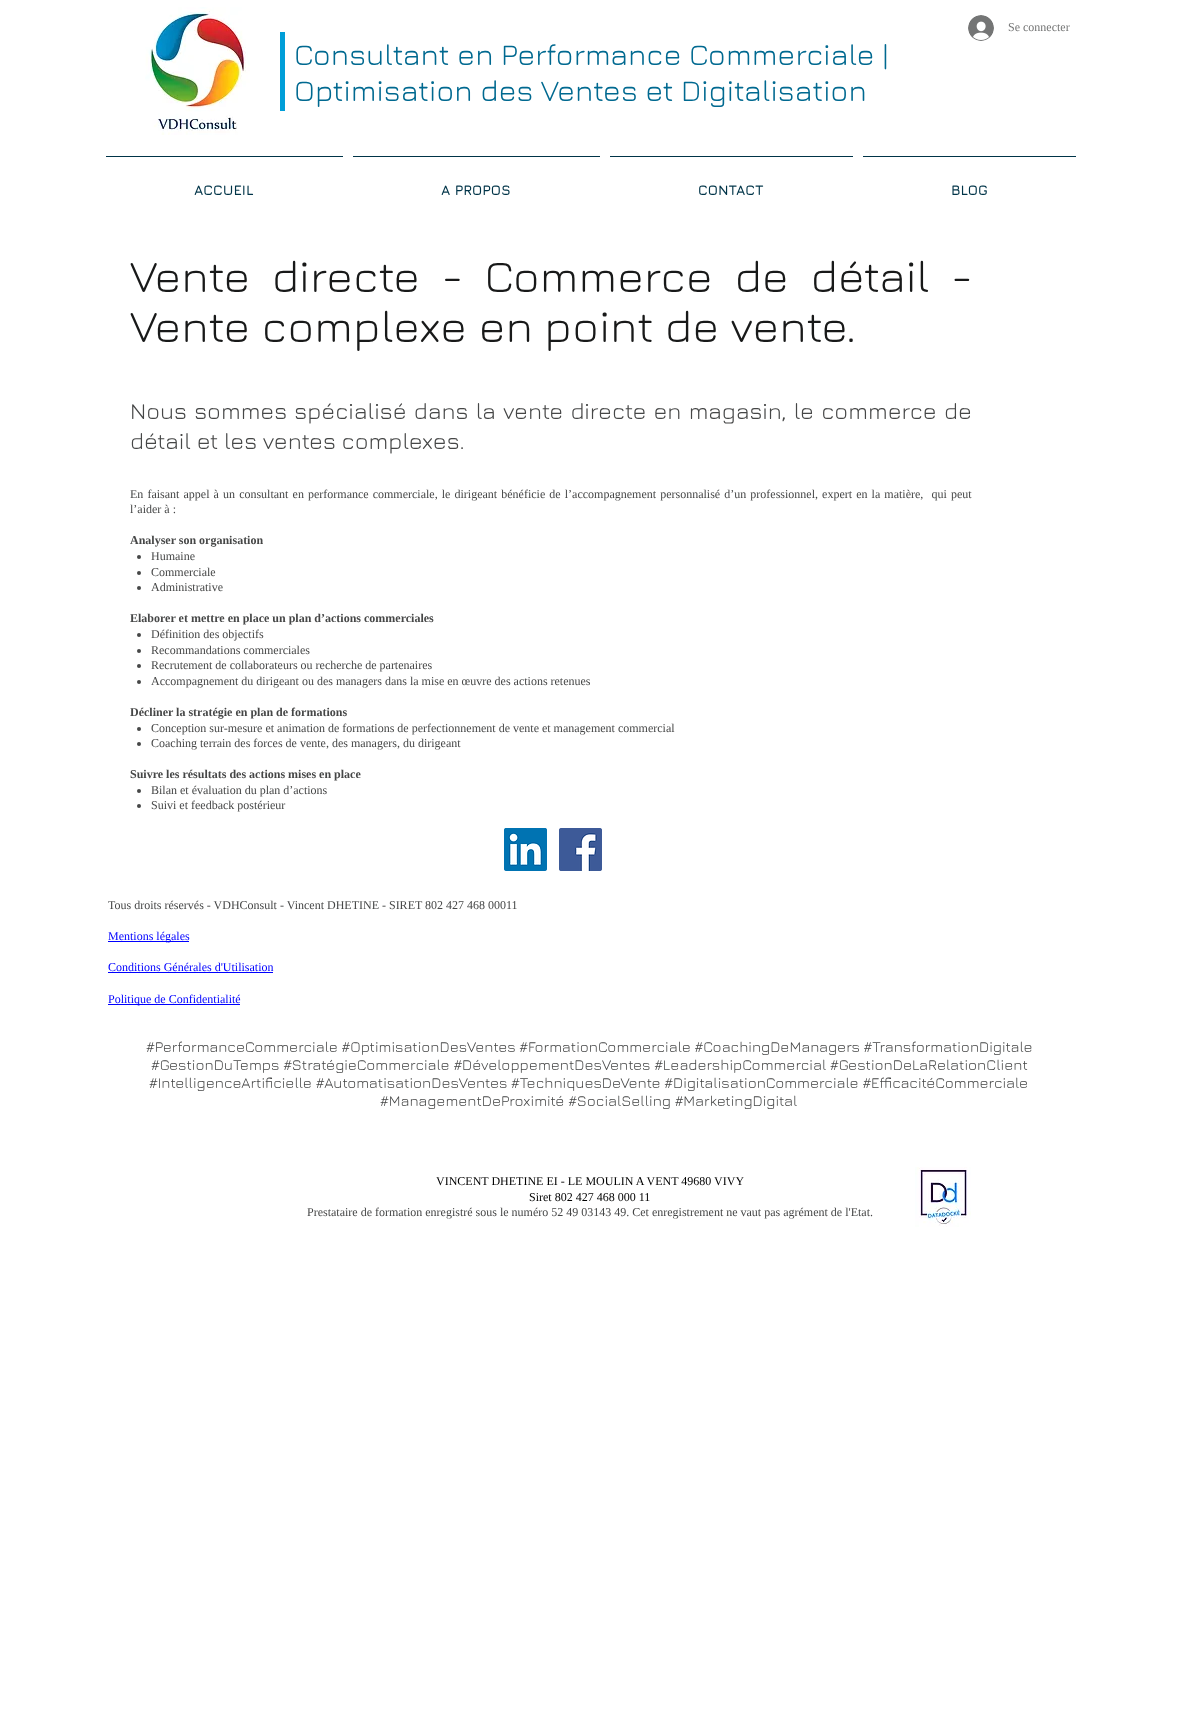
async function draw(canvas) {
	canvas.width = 1179;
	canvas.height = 1712;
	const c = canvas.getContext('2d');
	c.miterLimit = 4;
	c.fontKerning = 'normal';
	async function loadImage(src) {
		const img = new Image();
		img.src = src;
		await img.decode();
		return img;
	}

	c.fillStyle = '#fff';
	c.fillRect(0, 0, 1179, 1712);
	c.drawImage(await loadImage('img1.png'), 145, 7, 105, 128);
	c.drawImage(await loadImage('img2.png'), 968, 15, 26, 26);
	c.font = '12px Liberation Serif';
	c.fillStyle = '#747575';
	c.fillText('Se connecter', 1008, 31);
	c.fillStyle = '#009ed8';
	c.fillRect(280, 32, 5, 79);
	c.font = '30px Jura';
	c.fillStyle = '#006990';
	c.fillText('Consultant en Performance Commerciale |', 294, 65);
	c.fillText('Optimisation des Ventes et Digitalisation', 294, 101);
	c.fillStyle = '#003448';
	c.fillRect(106, 156, 237, 1);
	c.font = 'bold 14px Jura';
	c.fillText('ACCUEIL', 194, 195);
	c.fillRect(353, 156, 247, 1);
	c.fillText('A PROPOS', 441, 195);
	c.fillRect(610, 156, 243, 1);
	c.fillText('CONTACT', 698, 195);
	c.fillRect(863, 156, 213, 1);
	c.fillText('BLOG', 951, 195);
	c.wordSpacing = '10.25px';
	c.font = '45px Jura';
	c.fillStyle = '#181919';
	c.fillText('Vente directe - Commerce de détail -', 130, 292);
	c.wordSpacing = '0px';
	c.fillText('Vente complexe en point de vente.', 130, 342);
	c.wordSpacing = '1.5px';
	c.font = '23px Jura';
	c.fillStyle = '#464747';
	c.fillText('Nous sommes spécialisé dans la vente directe en magasin, le commerce de', 130, 419);
	c.wordSpacing = '0px';
	c.fillText('détail et les ventes complexes.', 130, 449);
	c.wordSpacing = '1.1px';
	c.font = '12px Liberation Serif';
	c.fillText('En faisant appel à un consultant en performance commerciale, le dirigeant bénéficie de l’accompagnement personnalisé d’un professionnel, expert en la matière,  qui peut', 130, 498);
	c.wordSpacing = '0px';
	c.fillText('l’aider à :', 130, 513);
	c.font = 'bold 12px Liberation Serif';
	c.fillText('Analyser son organisation', 130, 544);
	c.beginPath();
	c.arc(139, 557, 2, 0, 2 * Math.PI);
	c.fill();
	c.font = '12px Liberation Serif';
	c.fillText('Humaine', 151, 560);
	c.beginPath();
	c.arc(139, 573, 2, 0, 2 * Math.PI);
	c.fill();
	c.fillText('Commerciale', 151, 576);
	c.beginPath();
	c.arc(139, 588, 2, 0, 2 * Math.PI);
	c.fill();
	c.fillText('Administrative', 151, 591);
	c.font = 'bold 12px Liberation Serif';
	c.fillText('Elaborer et mettre en place un plan d’actions commerciales', 130, 622);
	c.beginPath();
	c.arc(139, 635, 2, 0, 2 * Math.PI);
	c.fill();
	c.font = '12px Liberation Serif';
	c.fillText('Définition des objectifs', 151, 638);
	c.beginPath();
	c.arc(139, 651, 2, 0, 2 * Math.PI);
	c.fill();
	c.fillText('Recommandations commerciales', 151, 654);
	c.beginPath();
	c.arc(139, 666, 2, 0, 2 * Math.PI);
	c.fill();
	c.fillText('Recrutement de collaborateurs ou recherche de partenaires', 151, 669);
	c.beginPath();
	c.arc(139, 682, 2, 0, 2 * Math.PI);
	c.fill();
	c.fillText('Accompagnement du dirigeant ou des managers dans la mise en œuvre des actions retenues', 151, 685);
	c.font = 'bold 12px Liberation Serif';
	c.fillText('Décliner la stratégie en plan de formations', 130, 716);
	c.beginPath();
	c.arc(139, 729, 2, 0, 2 * Math.PI);
	c.fill();
	c.font = '12px Liberation Serif';
	c.fillText('Conception sur-mesure et animation de formations de perfectionnement de vente et management commercial', 151, 732);
	c.beginPath();
	c.arc(139, 744, 2, 0, 2 * Math.PI);
	c.fill();
	c.fillText('Coaching terrain des forces de vente, des managers, du dirigeant', 151, 747);
	c.font = 'bold 12px Liberation Serif';
	c.fillText('Suivre les résultats des actions mises en place', 130, 778);
	c.beginPath();
	c.arc(139, 791, 2, 0, 2 * Math.PI);
	c.fill();
	c.font = '12px Liberation Serif';
	c.fillText('Bilan et évaluation du plan d’actions', 151, 794);
	c.beginPath();
	c.arc(139, 806, 2, 0, 2 * Math.PI);
	c.fill();
	c.fillText('Suivi et feedback postérieur', 151, 809);
	c.drawImage(await loadImage('img3.png'), 504, 828, 43, 43);
	c.drawImage(await loadImage('img4.png'), 559, 828, 43, 43);
	c.fillText('Tous droits réservés - VDHConsult - Vincent DHETINE - SIRET 802 427 468 00011', 108, 909);
	c.fillStyle = '#00f';
	c.fillRect(108, 941, 81, 1);
	c.fillText('Mentions légales', 108, 940);
	c.fillText('Conditions Générales d\'Utilisation', 108, 971);
	c.fillRect(108, 972, 165, 1);
	c.fillRect(108, 1004, 132, 1);
	c.fillText('Politique de Confidentialité', 108, 1003);
	c.font = '15px Jura';
	c.fillStyle = '#464747';
	for (const [text, x, y] of [
		['#PerformanceCommerciale #OptimisationDesVentes #FormationCommerciale #CoachingDeManagers #TransformationDigitale', 146, 1052],
		['#GestionDuTemps #StratégieCommerciale #DéveloppementDesVentes #LeadershipCommercial #GestionDeLaRelationClient', 151, 1070],
		['#IntelligenceArtificielle #AutomatisationDesVentes #TechniquesDeVente #DigitalisationCommerciale #EfficacitéCommerciale', 149, 1088],
		['#ManagementDeProximité #SocialSelling #MarketingDigital', 380, 1106],
	]) {
		c.fillText(text, x, y);
	}
	c.font = '12px Liberation Serif';
	c.fillStyle = '#000';
	c.fillText('VINCENT DHETINE EI - LE MOULIN A VENT 49680 VIVY', 436, 1185);
	c.fillText('Siret 802 427 468 000 11', 529, 1201);
	c.fillStyle = '#464747';
	c.fillText('Prestataire de formation enregistré sous le numéro 52 49 03143 49. Cet enregistrement ne vaut pas agrément de l\'Etat.', 307, 1216);
	c.drawImage(await loadImage('img5.png'), 915, 1167, 56, 60);
}

draw(document.querySelector('canvas'));
